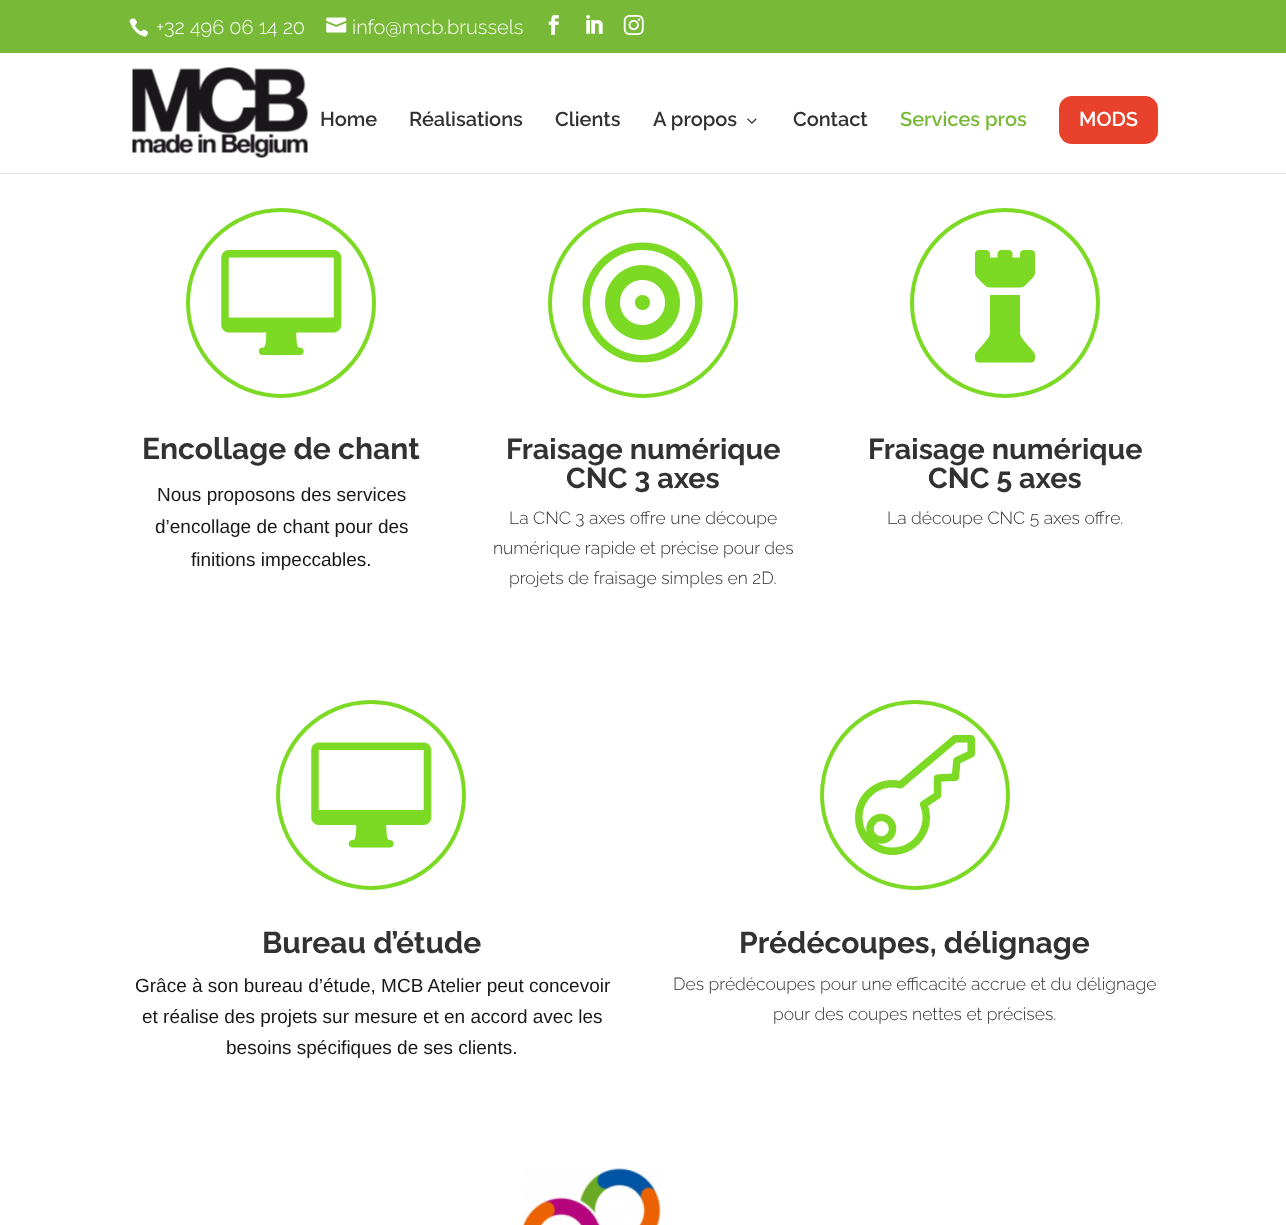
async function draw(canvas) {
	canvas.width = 1286;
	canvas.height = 1225;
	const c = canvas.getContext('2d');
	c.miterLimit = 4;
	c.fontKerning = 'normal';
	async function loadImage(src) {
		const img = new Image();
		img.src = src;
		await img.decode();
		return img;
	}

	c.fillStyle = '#fff';
	c.fillRect(0, 0, 1286, 1225);
	c.fillStyle = '#78b937';
	c.fillRect(0, 0, 1286, 53);
	c.drawImage(await loadImage('img1.png'), 129, 18, 19, 19);
	c.font = '300 20px Raleway';
	c.fillStyle = '#fff';
	c.fillText('+32 496 06 14 20', 156, 34);
	c.drawImage(await loadImage('img2.png'), 326, 17, 21, 16);
	c.fillText('info@mcb.brussels', 352, 34);
	c.drawImage(await loadImage('img3.png'), 548, 15, 11, 20);
	c.drawImage(await loadImage('img4.png'), 586, 15, 17, 19);
	c.drawImage(await loadImage('img5.png'), 623, 15, 21, 20);
	c.fillStyle = '#e6e6e6';
	c.fillRect(0, 173, 1286, 1);
	c.drawImage(await loadImage('img6.png'), 132, 67, 176, 91);
	c.font = '600 20px Raleway';
	c.fillStyle = '#323232';
	for (const [text, x, y] of [
		['Home', 320, 126],
		['Réalisations', 409, 126],
		['Clients', 555, 126],
		['A propos', 653, 126],
	]) {
		c.fillText(text, x, y);
	}
	c.drawImage(await loadImage('img7.png'), 747, 118, 10, 6);
	c.fillText('Contact', 793, 126);
	c.fillStyle = '#78b937';
	c.fillText('Services pros', 900, 126);
	c.fillStyle = '#e9422c';
	c.beginPath();
	c.roundRect(1059, 96, 99, 48, 13);
	c.fill();
	c.fillStyle = '#fff';
	c.fillText('MODS', 1079, 126);
	c.beginPath();
	c.arc(281, 303, 93, 0, 2 * Math.PI);
	c.strokeStyle = '#7cda24';
	c.lineWidth = 4;
	c.stroke();
	c.drawImage(await loadImage('img8.png'), 221, 250, 121, 105);
	c.font = 'bold 30px Raleway';
	c.fillStyle = '#323232';
	c.fillText('Encollage de chant', 142, 459);
	c.font = '19px Liberation Sans';
	c.fillStyle = '#1a171b';
	for (const [text, x, y] of [
		['Nous proposons des services', 157, 501],
		['d’encollage de chant pour des', 155, 533],
		['finitions impeccables.', 191, 566],
	]) {
		c.fillText(text, x, y);
	}
	c.beginPath();
	c.arc(643, 303, 93, 0, 2 * Math.PI);
	c.stroke();
	c.drawImage(await loadImage('img9.png'), 582, 242, 121, 121);
	c.font = 'bold 28.75px Raleway';
	c.fillStyle = '#323232';
	c.fillText('Fraisage numérique', 506, 459);
	c.fillText('CNC 3 axes', 566, 488);
	c.font = '300 17.5px Raleway';
	for (const [text, x, y] of [
		['La CNC 3 axes offre une découpe', 509, 524],
		['numérique rapide et précise pour des', 493, 554],
		['projets de fraisage simples en 2D.', 509, 584],
	]) {
		c.fillText(text, x, y);
	}
	c.beginPath();
	c.arc(1005, 303, 93, 0, 2 * Math.PI);
	c.stroke();
	c.drawImage(await loadImage('img10.png'), 975, 250, 60, 113);
	c.font = 'bold 28.75px Raleway';
	c.fillText('Fraisage numérique', 868, 459);
	c.fillText('CNC 5 axes', 928, 488);
	c.font = '300 17.5px Raleway';
	c.fillText('La découpe CNC 5 axes offre.', 887, 524);
	c.beginPath();
	c.arc(371, 795, 93, 0, 2 * Math.PI);
	c.stroke();
	c.drawImage(await loadImage('img11.png'), 311, 742, 121, 106);
	c.font = 'bold 30px Raleway';
	c.fillText('Bureau d’étude', 262, 953);
	c.font = '19px Liberation Sans';
	c.fillStyle = '#1a171b';
	for (const [text, x, y] of [
		['Grâce à son bureau d’étude, MCB Atelier peut concevoir', 135, 992],
		['et réalise des projets sur mesure et en accord avec les', 142, 1023],
		['besoins spécifiques de ses clients.', 226, 1054],
	]) {
		c.fillText(text, x, y);
	}
	c.beginPath();
	c.arc(915, 795, 93, 0, 2 * Math.PI);
	c.stroke();
	c.drawImage(await loadImage('img12.png'), 855, 735, 120, 120);
	c.font = 'bold 30px Raleway';
	c.fillStyle = '#323232';
	c.fillText('Prédécoupes, délignage', 739, 953);
	c.font = '300 17.5px Raleway';
	c.fillText('Des prédécoupes pour une efficacité accrue et du délignage', 673, 990);
	c.fillText('pour des coupes nettes et précises.', 773, 1020);
	c.drawImage(await loadImage('img13.png'), 522, 1167, 140, 58);
}

draw(document.querySelector('canvas'));
